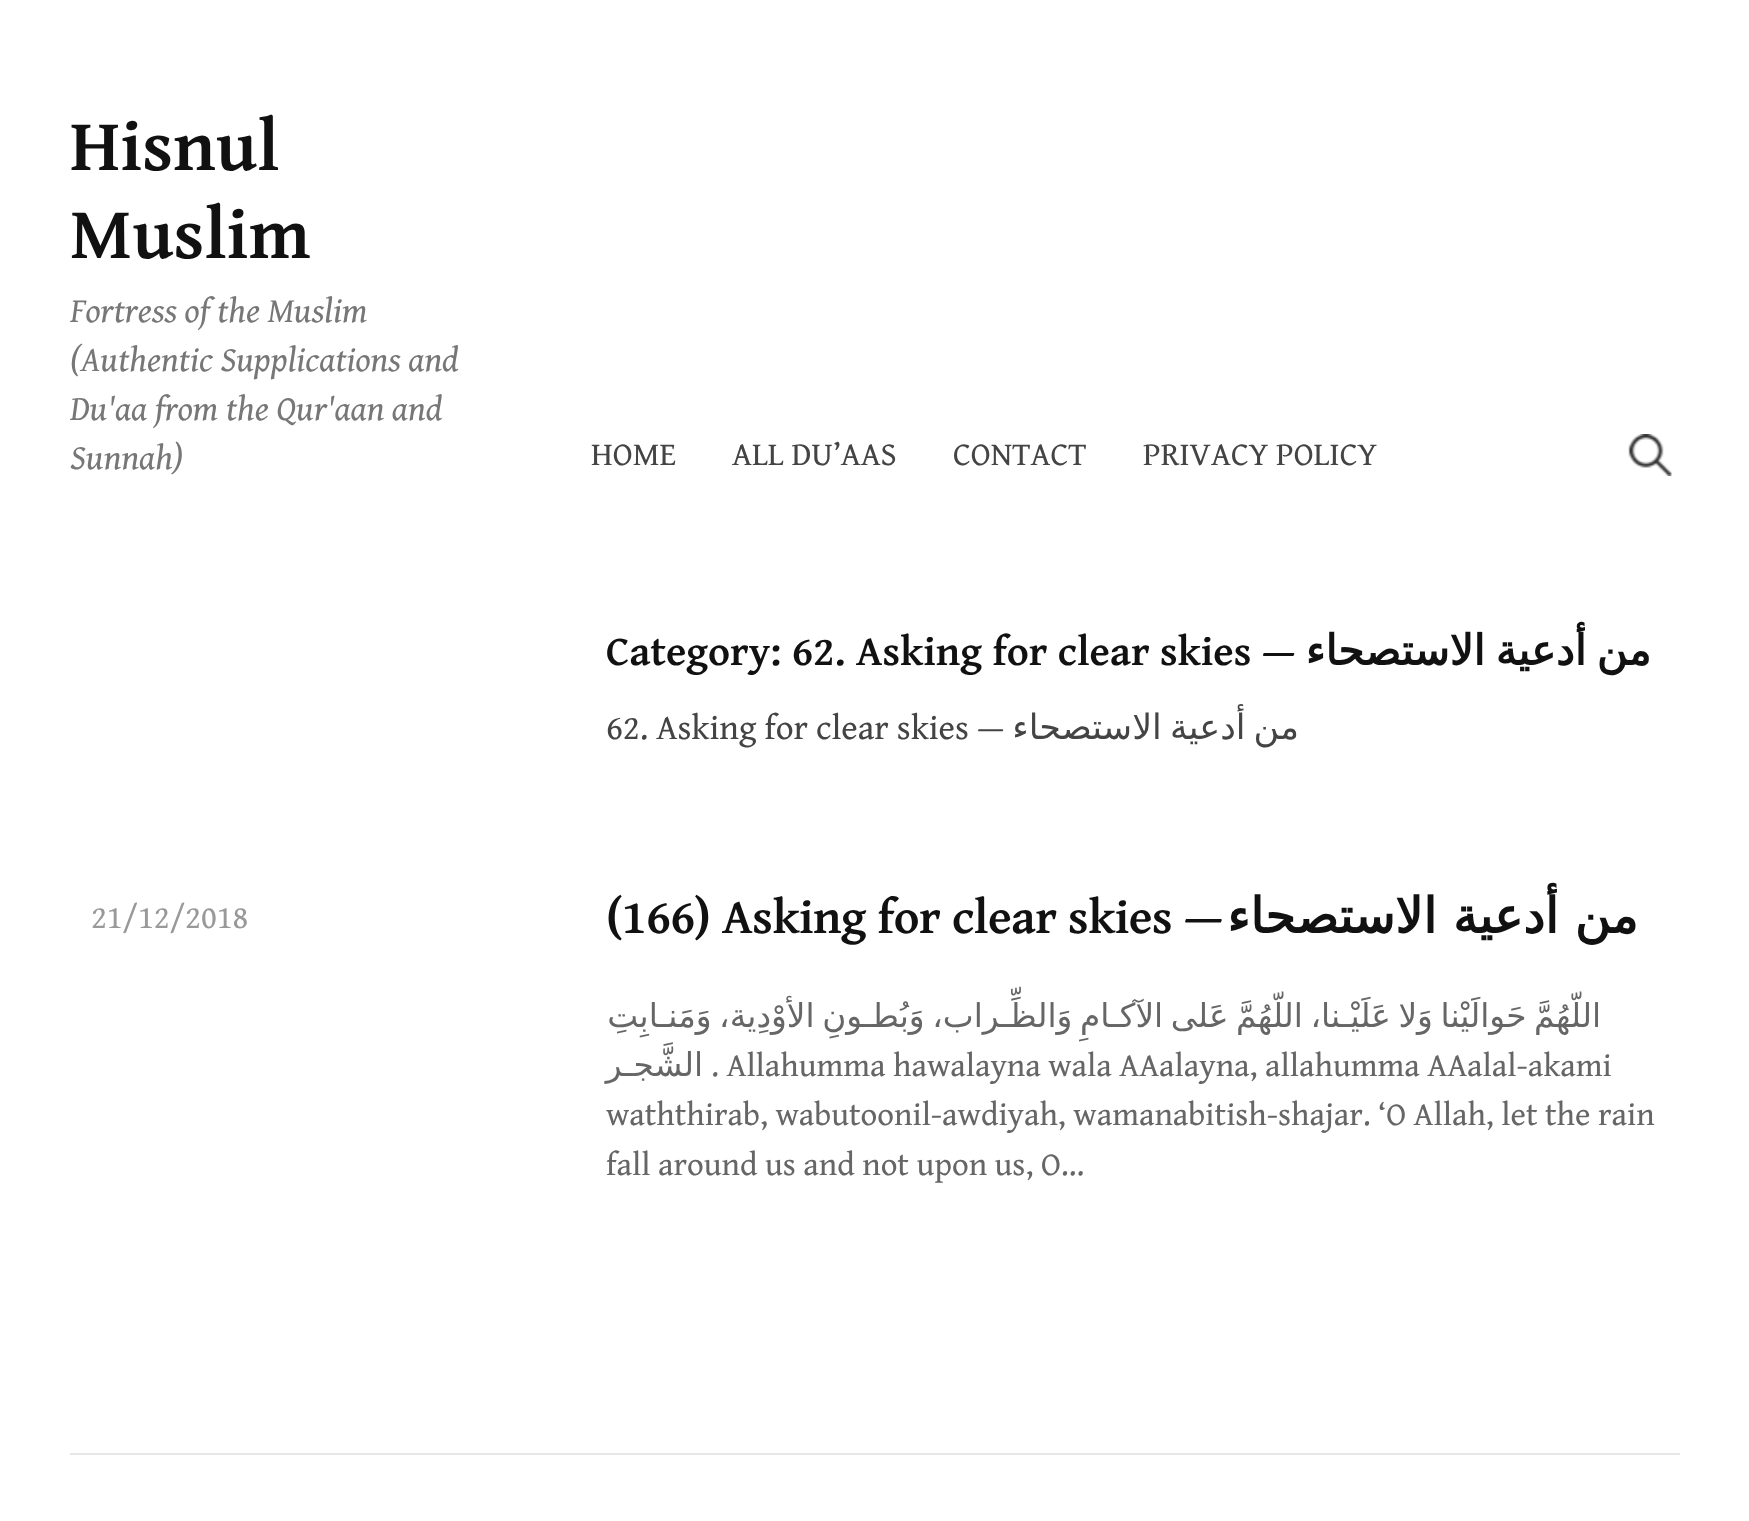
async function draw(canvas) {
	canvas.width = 1749;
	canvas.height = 1521;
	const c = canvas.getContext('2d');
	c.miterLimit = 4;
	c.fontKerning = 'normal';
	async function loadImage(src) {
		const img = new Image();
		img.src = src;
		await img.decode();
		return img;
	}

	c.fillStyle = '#fff';
	c.fillRect(0, 0, 1749, 1521);
	c.font = 'bold 73.5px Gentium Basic';
	c.fillStyle = '#111';
	c.fillText('Hisnul', 70, 170);
	c.fillText('Muslim', 70, 258);
	c.font = 'italic 35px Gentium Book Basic';
	c.fillStyle = '#777';
	for (const [text, x, y] of [
		['Fortress of the Muslim', 70, 322],
		['(Authentic Supplications and', 70, 371],
		['Du\'aa from the Qur\'aan and', 70, 420],
		['Sunnah)', 70, 469],
	]) {
		c.fillText(text, x, y);
	}
	c.font = '32.8px Gentium Book Basic';
	c.fillStyle = '#444';
	for (const [text, x, y] of [
		['HOME', 591, 465],
		['ALL DU’AAS', 732, 465],
		['CONTACT', 953, 465],
		['PRIVACY POLICY', 1143, 465],
	]) {
		c.fillText(text, x, y);
	}
	c.drawImage(await loadImage('img1.png'), 1628, 434, 44, 42);
	c.font = 'bold 42px Gentium Basic';
	c.fillStyle = '#111';
	c.fillText('Category: 62. Asking for clear skies —', 606, 665);
	c.wordSpacing = '-2.9px';
	c.direction = 'rtl';
	c.font = 'bold 42px DejaVu Sans';
	c.fillText('من أدعية الاستصحاء', 1651, 665);
	c.wordSpacing = '0px';
	c.direction = 'ltr';
	c.font = '35px Gentium Book Basic';
	c.fillStyle = '#444';
	c.fillText('62. Asking for clear skies —', 606, 739);
	c.wordSpacing = '-3px';
	c.direction = 'rtl';
	c.font = '35px DejaVu Sans';
	c.fillText('من أدعية الاستصحاء', 1299, 739);
	c.wordSpacing = '0px';
	c.direction = 'ltr';
	c.font = '32.8px Gentium Book Basic';
	c.fillStyle = '#999';
	c.fillText('21/12/2018', 91, 928);
	c.letterSpacing = '-0.5px';
	c.font = 'bold 49px Gentium Basic';
	c.fillStyle = '#111';
	c.fillText('(166) Asking for clear skies —', 606, 933);
	c.wordSpacing = '1px';
	c.direction = 'rtl';
	c.font = 'bold 49px DejaVu Sans';
	c.fillText('من أدعية الاستصحاء', 1638, 933);
	c.letterSpacing = '0px';
	c.wordSpacing = '-2.9px';
	c.font = '32.8px DejaVu Sans';
	c.fillStyle = '#666';
	c.fillText('اللّهُمَّ حَوالَيْنا وَلا عَلَيْـنا، اللّهُمَّ عَلى الآكـامِ وَالظِّـراب، وَبُطـونِ الأوْدِية، وَمَنـابِتِ', 1601, 1027);
	c.wordSpacing = '0px';
	c.fillText('الشَّجـر', 703, 1076);
	c.direction = 'ltr';
	c.font = '32.8px Gentium Book Basic';
	for (const [text, x, y] of [
		['. Allahumma hawalayna wala AAalayna, allahumma AAalal-akami', 711, 1076],
		['waththirab, wabutoonil-awdiyah, wamanabitish-shajar. ‘O Allah, let the rain', 606, 1125],
		['fall around us and not upon us, O…', 606, 1175],
	]) {
		c.fillText(text, x, y);
	}
	c.fillStyle = '#e6e6e6';
	c.fillRect(70, 1453, 1610, 2);
}

draw(document.querySelector('canvas'));
